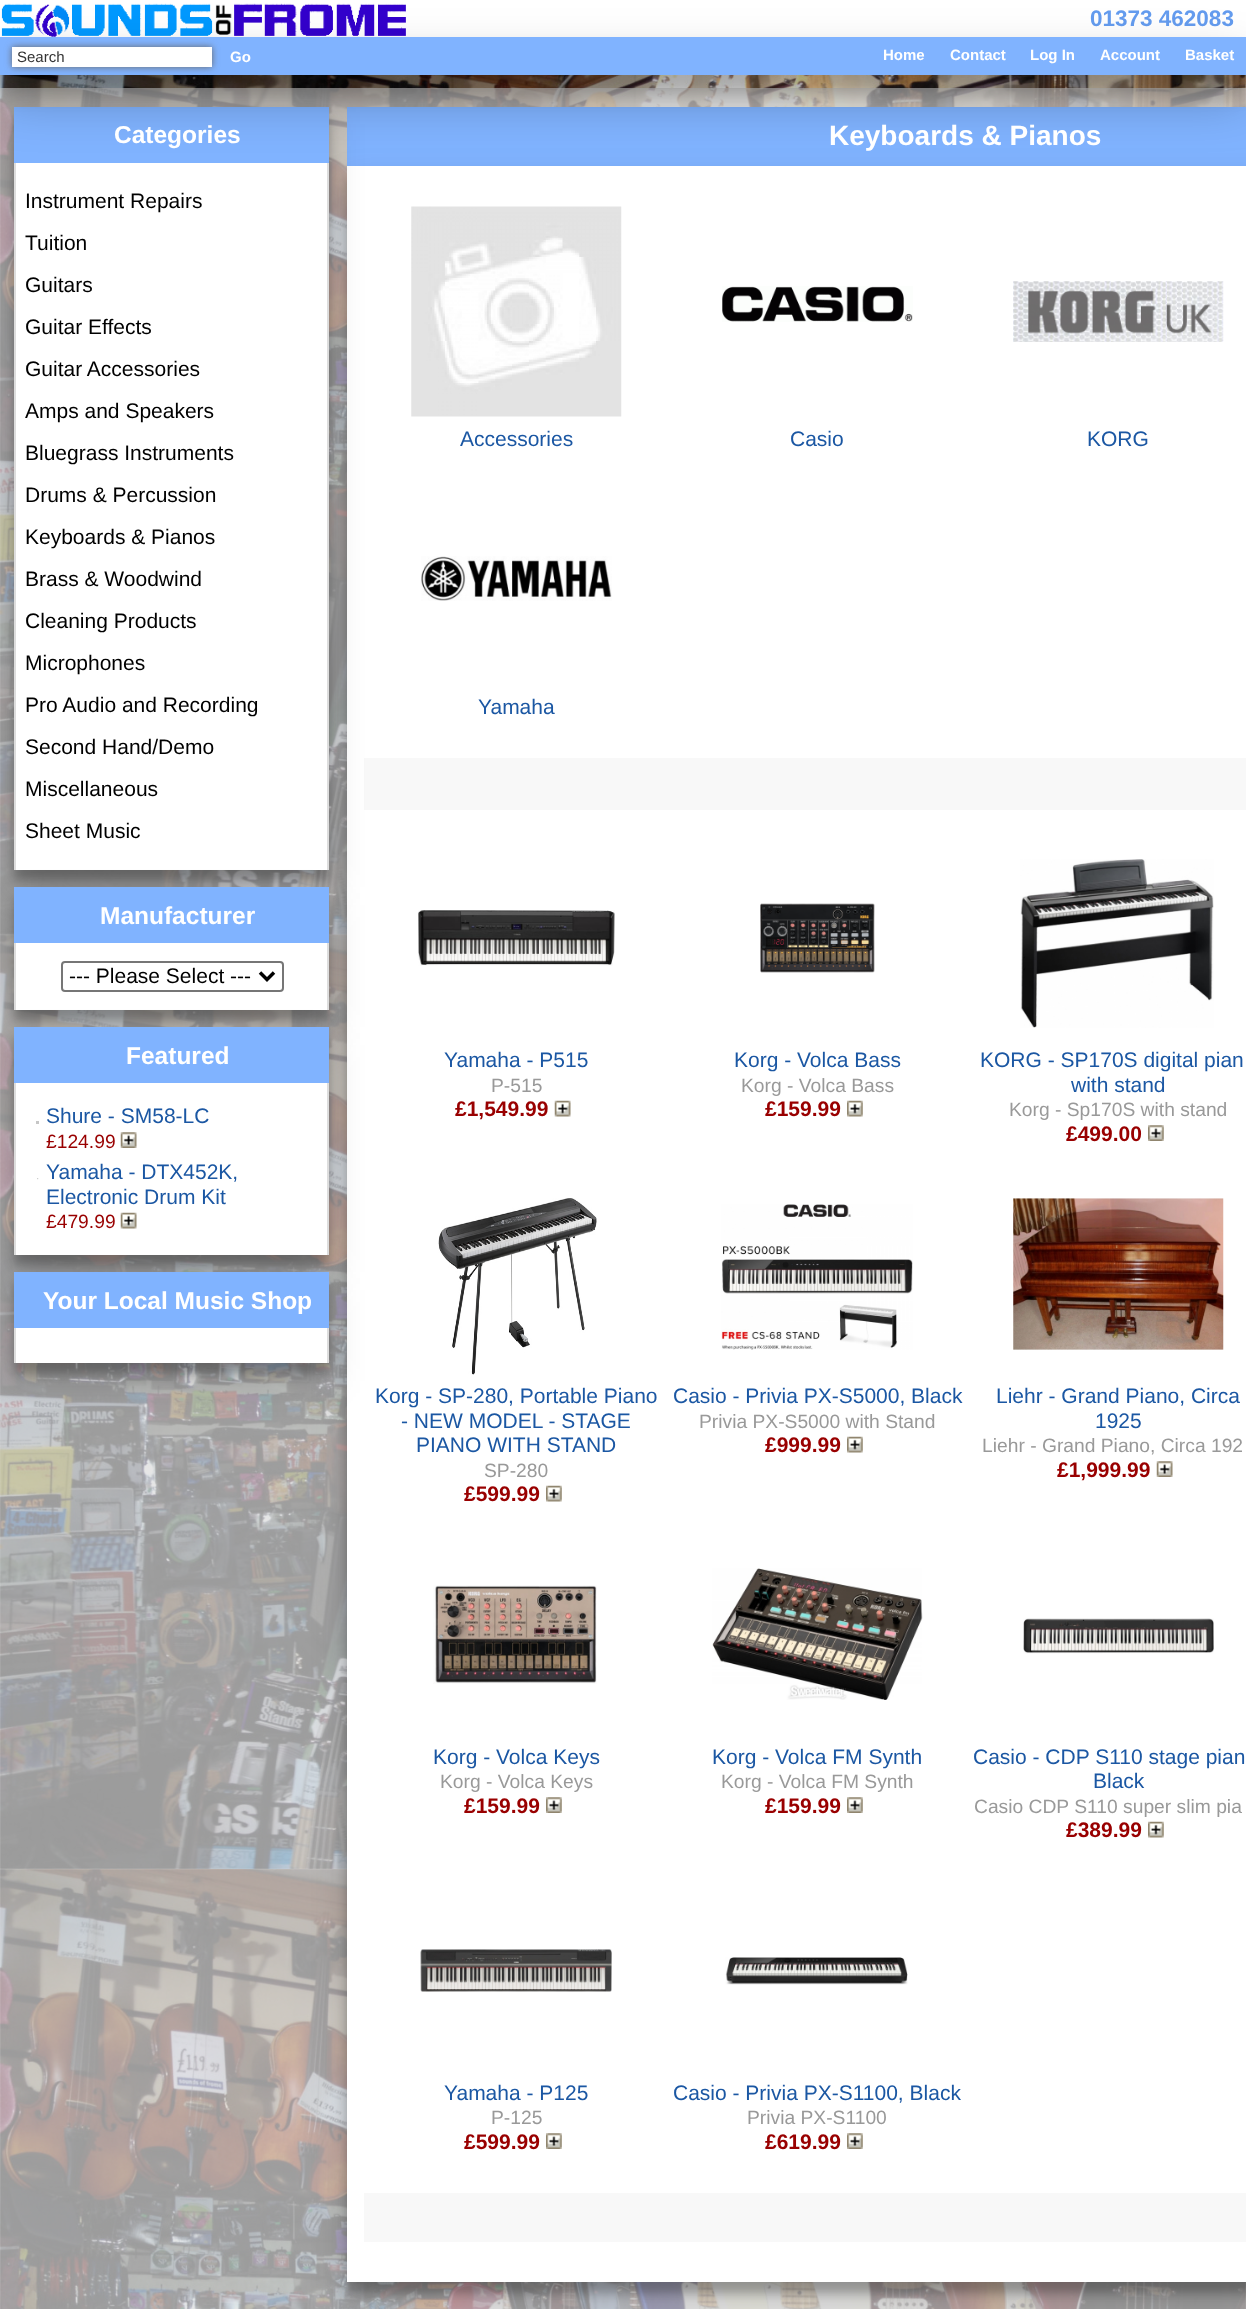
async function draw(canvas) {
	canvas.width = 1246;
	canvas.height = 2309;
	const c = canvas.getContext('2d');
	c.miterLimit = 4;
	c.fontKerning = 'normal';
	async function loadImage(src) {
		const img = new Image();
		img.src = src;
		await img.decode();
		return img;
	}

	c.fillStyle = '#fff';
	c.fillRect(0, 0, 1246, 2309);
	c.drawImage(await loadImage('img1.png'), 0, 75, 1246, 2234);
	c.drawImage(await loadImage('img2.png'), 1, 3, 405, 34);
	c.font = 'bold 22.5px Liberation Sans';
	c.fillStyle = '#649cef';
	c.fillText('01373 462083', 1090, 26);
	c.fillStyle = '#0000003b';
	c.filter = 'blur(5px)';
	c.beginPath();
	c.rect(14, 117, 315, 763);
	c.fill();
	c.filter = 'none';
	c.fillStyle = '#80b3ff';
	c.fillRect(347, 107, 899, 59);
	c.fillStyle = '#0000003b';
	c.filter = 'blur(5px)';
	c.beginPath();
	c.rect(347, 177, 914, 2116);
	c.fill();
	c.filter = 'none';
	c.fillStyle = '#00000030';
	c.filter = 'blur(17.5px)';
	c.beginPath();
	c.rect(347, 184, 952, 2116);
	c.fill();
	c.filter = 'none';
	c.fillStyle = '#fff';
	c.fillRect(347, 166, 899, 2116);
	c.fillStyle = '#f8f8f8';
	c.fillRect(364, 758, 882, 52);
	c.fillStyle = '#00000030';
	c.filter = 'blur(17.5px)';
	c.beginPath();
	c.rect(14, 124, 315, 763);
	c.fill();
	c.filter = 'none';
	c.fillStyle = '#80b3ff';
	c.fillRect(14, 107, 315, 56);
	c.fillStyle = '#00000038';
	c.filter = 'blur(9px)';
	c.beginPath();
	c.rect(0, 54, 1246, 39);
	c.fill();
	c.filter = 'none';
	for (const [x, y, w, h, color] of [
		[16, 163, 311, 707, '#fff'],
		[327, 163, 2, 707, '#ddd'],
		[14, 163, 2, 707, '#ddd'],
	]) {
		c.fillStyle = color;
		c.fillRect(x, y, w, h);
	}
	c.fillStyle = '#00000040';
	c.filter = 'blur(24.5px)';
	c.beginPath();
	c.rect(0, 61, 1246, 39);
	c.fill();
	c.filter = 'none';
	c.fillStyle = '#80b3ff';
	c.fillRect(0, 37, 1246, 38);
	c.fillStyle = '#666';
	c.filter = 'blur(3.5px)';
	c.beginPath();
	c.rect(12, 47, 200, 20);
	c.fill();
	c.filter = 'none';
	c.fillStyle = '#fff';
	c.fillRect(12, 47, 200, 20);
	c.font = '15px Liberation Sans';
	c.fillStyle = '#333';
	c.fillText('Search', 17, 62);
	c.font = 'bold 15px Liberation Sans';
	c.fillStyle = '#fff';
	for (const [text, x, y] of [
		['Go', 230, 62],
		['Home', 883, 60],
		['Contact', 950, 60],
		['Log In', 1030, 60],
		['Account', 1100, 60],
		['Basket', 1185, 60],
	]) {
		c.fillText(text, x, y);
	}
	c.font = 'bold 24.5px Liberation Sans';
	c.fillText('Categories', 114, 143);
	c.font = '21px Liberation Sans';
	c.fillStyle = '#000';
	for (const [text, x, y] of [
		['Instrument Repairs', 25, 208],
		['Tuition', 25, 250],
		['Guitars', 25, 292],
		['Guitar Effects', 25, 334],
		['Guitar Accessories', 25, 376],
		['Amps and Speakers', 25, 418],
		['Bluegrass Instruments', 25, 460],
		['Drums & Percussion', 25, 502],
		['Keyboards & Pianos', 25, 544],
		['Brass & Woodwind', 25, 586],
		['Cleaning Products', 25, 628],
		['Microphones', 25, 670],
		['Pro Audio and Recording', 25, 712],
		['Second Hand/Demo', 25, 754],
		['Miscellaneous', 25, 796],
		['Sheet Music', 25, 838],
	]) {
		c.fillText(text, x, y);
	}
	c.fillStyle = '#0000003b';
	c.filter = 'blur(5px)';
	c.beginPath();
	c.rect(14, 898, 315, 122);
	c.fill();
	c.filter = 'none';
	c.fillStyle = '#00000030';
	c.filter = 'blur(17.5px)';
	c.beginPath();
	c.rect(14, 905, 315, 122);
	c.fill();
	c.filter = 'none';
	c.fillStyle = '#80b3ff';
	c.fillRect(14, 887, 315, 56);
	c.font = 'bold 24.5px Liberation Sans';
	c.fillStyle = '#fff';
	c.fillText('Manufacturer', 100, 924);
	for (const [x, y, w, h, color] of [
		[16, 943, 311, 67, '#fff'],
		[327, 943, 2, 67, '#ddd'],
		[14, 943, 2, 67, '#ddd'],
	]) {
		c.fillStyle = color;
		c.fillRect(x, y, w, h);
	}
	c.fillStyle = '#00000030';
	c.filter = 'blur(17.5px)';
	c.beginPath();
	c.rect(14, 1045, 315, 227);
	c.fill();
	c.filter = 'none';
	c.beginPath();
	c.roundRect(62, 962, 221, 29, 3);
	c.strokeStyle = '#767676';
	c.lineWidth = 2;
	c.stroke();
	c.beginPath();
	c.moveTo(260, 972.5);
	c.lineTo(267, 979.5);
	c.lineTo(274, 972.5);
	c.strokeStyle = '#000';
	c.lineWidth = 3.5;
	c.stroke();
	c.font = '21px Liberation Sans';
	c.fillStyle = '#000';
	c.fillText('--- Please Select ---', 69, 983);
	c.fillStyle = '#0000003b';
	c.filter = 'blur(5px)';
	c.beginPath();
	c.rect(14, 1038, 315, 227);
	c.fill();
	c.filter = 'none';
	c.fillStyle = '#80b3ff';
	c.fillRect(14, 1027, 315, 56);
	c.font = 'bold 24.5px Liberation Sans';
	c.fillStyle = '#fff';
	c.fillText('Featured', 126, 1064);
	for (const [x, y, w, h, color] of [
		[16, 1083, 311, 172, '#fff'],
		[327, 1083, 2, 172, '#ddd'],
		[14, 1083, 2, 172, '#ddd'],
		[36, 1121, 3, 3, '#c6c6c6'],
	]) {
		c.fillStyle = color;
		c.fillRect(x, y, w, h);
	}
	c.font = '21px Liberation Sans';
	c.fillStyle = '#1b57a3';
	c.fillText('Shure - SM58-LC', 46, 1123);
	c.font = '19.25px Liberation Sans';
	c.fillStyle = '#900';
	c.fillText('£124.99', 46, 1148);
	c.drawImage(await loadImage('img3.png'), 120, 1132, 17, 16);
	c.drawImage(await loadImage('img4.png'), 37, 1178, 2, 2);
	c.font = '21px Liberation Sans';
	c.fillStyle = '#1b57a3';
	c.fillText('Yamaha - DTX452K,', 46, 1179);
	c.fillText('Electronic Drum Kit', 46, 1204);
	c.font = '19.25px Liberation Sans';
	c.fillStyle = '#900';
	c.fillText('£479.99', 46, 1228);
	c.drawImage(await loadImage('img5.png'), 120, 1212, 17, 17);
	c.fillStyle = '#0000003b';
	c.filter = 'blur(5px)';
	c.beginPath();
	c.rect(14, 1283, 315, 91);
	c.fill();
	c.filter = 'none';
	c.fillStyle = '#00000030';
	c.filter = 'blur(17.5px)';
	c.beginPath();
	c.rect(14, 1290, 315, 91);
	c.fill();
	c.filter = 'none';
	c.fillStyle = '#80b3ff';
	c.fillRect(14, 1272, 315, 56);
	c.font = 'bold 24.5px Liberation Sans';
	c.fillStyle = '#fff';
	c.fillText('Your Local Music Shop', 43, 1309);
	for (const [x, y, w, h, color] of [
		[16, 1328, 311, 35, '#fff'],
		[327, 1328, 2, 35, '#ddd'],
		[14, 1328, 2, 35, '#ddd'],
	]) {
		c.fillStyle = color;
		c.fillRect(x, y, w, h);
	}
	c.font = 'bold 28px Liberation Sans';
	c.fillStyle = '#fff';
	c.fillText('Keyboards & Pianos', 829, 145);
	c.drawImage(await loadImage('img6.png'), 411, 206, 211, 211);
	c.font = '21px Liberation Sans';
	c.fillStyle = '#1b57a3';
	c.fillText('Accessories', 460, 446);
	c.drawImage(await loadImage('img7.png'), 722, 286, 191, 36);
	c.fillText('Casio', 790, 446);
	c.drawImage(await loadImage('img8.png'), 1013, 281, 211, 61);
	c.fillText('KORG', 1087, 446);
	c.drawImage(await loadImage('img9.png'), 421, 556, 191, 45);
	c.fillText('Yamaha', 478, 714);
	c.drawImage(await loadImage('img10.png'), 418, 910, 197, 56);
	c.fillText('Yamaha - P515', 444, 1067);
	c.font = '19.25px Liberation Sans';
	c.fillStyle = '#999';
	c.fillText('P-515', 491, 1092);
	c.font = 'bold 21px Liberation Sans';
	c.fillStyle = '#900';
	c.fillText('£1,549.99', 455, 1116);
	c.drawImage(await loadImage('img5.png'), 554, 1100, 17, 17);
	c.drawImage(await loadImage('img11.png'), 760, 903, 115, 70);
	c.font = '21px Liberation Sans';
	c.fillStyle = '#1b57a3';
	c.fillText('Korg - Volca Bass', 734, 1067);
	c.font = '19.25px Liberation Sans';
	c.fillStyle = '#999';
	c.fillText('Korg - Volca Bass', 741, 1092);
	c.font = 'bold 21px Liberation Sans';
	c.fillStyle = '#900';
	c.fillText('£159.99', 765, 1116);
	c.drawImage(await loadImage('img12.png'), 847, 1100, 16, 17);
	c.drawImage(await loadImage('img13.png'), 1020, 859, 194, 169);
	c.font = '21px Liberation Sans';
	c.fillStyle = '#1b57a3';
	c.fillText('KORG - SP170S digital pian', 980, 1067);
	c.fillText('with stand', 1071, 1092);
	c.font = '19.25px Liberation Sans';
	c.fillStyle = '#999';
	c.fillText('Korg - Sp170S with stand', 1009, 1116);
	c.font = 'bold 21px Liberation Sans';
	c.fillStyle = '#900';
	c.fillText('£499.00', 1066, 1141);
	c.drawImage(await loadImage('img14.png'), 1148, 1125, 16, 16);
	c.drawImage(await loadImage('img15.png'), 438, 1198, 159, 177);
	c.font = '21px Liberation Sans';
	c.fillStyle = '#1b57a3';
	for (const [text, x, y] of [
		['Korg - SP-280, Portable Piano', 375, 1403],
		['- NEW MODEL - STAGE', 401, 1428],
		['PIANO WITH STAND', 416, 1452],
	]) {
		c.fillText(text, x, y);
	}
	c.font = '19.25px Liberation Sans';
	c.fillStyle = '#999';
	c.fillText('SP-280', 484, 1477);
	c.font = 'bold 21px Liberation Sans';
	c.fillStyle = '#900';
	c.fillText('£599.99', 464, 1501);
	c.drawImage(await loadImage('img16.png'), 546, 1485, 16, 17);
	c.drawImage(await loadImage('img17.png'), 721, 1204, 192, 146);
	c.font = '21px Liberation Sans';
	c.fillStyle = '#1b57a3';
	c.fillText('Casio - Privia PX-S5000, Black', 673, 1403);
	c.font = '19.25px Liberation Sans';
	c.fillStyle = '#999';
	c.fillText('Privia PX-S5000 with Stand', 699, 1428);
	c.font = 'bold 21px Liberation Sans';
	c.fillStyle = '#900';
	c.fillText('£999.99', 765, 1452);
	c.drawImage(await loadImage('img12.png'), 847, 1436, 16, 17);
	c.drawImage(await loadImage('img18.png'), 1013, 1198, 211, 152);
	c.font = '21px Liberation Sans';
	c.fillStyle = '#1b57a3';
	c.fillText('Liehr - Grand Piano, Circa', 996, 1403);
	c.fillText('1925', 1095, 1428);
	c.font = '19.25px Liberation Sans';
	c.fillStyle = '#999';
	c.fillText('Liehr - Grand Piano, Circa 192', 982, 1452);
	c.font = 'bold 21px Liberation Sans';
	c.fillStyle = '#900';
	c.fillText('£1,999.99', 1057, 1477);
	c.drawImage(await loadImage('img3.png'), 1156, 1461, 17, 16);
	c.drawImage(await loadImage('img19.png'), 433, 1585, 164, 99);
	c.font = '21px Liberation Sans';
	c.fillStyle = '#1b57a3';
	c.fillText('Korg - Volca Keys', 433, 1764);
	c.font = '19.25px Liberation Sans';
	c.fillStyle = '#999';
	c.fillText('Korg - Volca Keys', 440, 1788);
	c.font = 'bold 21px Liberation Sans';
	c.fillStyle = '#900';
	c.fillText('£159.99', 464, 1813);
	c.drawImage(await loadImage('img20.png'), 546, 1797, 16, 16);
	c.drawImage(await loadImage('img21.png'), 712, 1568, 211, 132);
	c.font = '21px Liberation Sans';
	c.fillStyle = '#1b57a3';
	c.fillText('Korg - Volca FM Synth', 712, 1764);
	c.font = '19.25px Liberation Sans';
	c.fillStyle = '#999';
	c.fillText('Korg - Volca FM Synth', 721, 1788);
	c.font = 'bold 21px Liberation Sans';
	c.fillStyle = '#900';
	c.fillText('£159.99', 765, 1813);
	c.drawImage(await loadImage('img22.png'), 847, 1797, 16, 16);
	c.drawImage(await loadImage('img23.png'), 1023, 1618, 191, 36);
	c.font = '21px Liberation Sans';
	c.fillStyle = '#1b57a3';
	c.fillText('Casio - CDP S110 stage pian', 973, 1764);
	c.fillText('Black', 1093, 1788);
	c.font = '19.25px Liberation Sans';
	c.fillStyle = '#999';
	c.fillText('Casio CDP S110 super slim pia', 974, 1813);
	c.font = 'bold 21px Liberation Sans';
	c.fillStyle = '#900';
	c.fillText('£389.99', 1066, 1837);
	c.drawImage(await loadImage('img12.png'), 1148, 1821, 16, 17);
	c.drawImage(await loadImage('img24.png'), 420, 1949, 192, 43);
	c.font = '21px Liberation Sans';
	c.fillStyle = '#1b57a3';
	c.fillText('Yamaha - P125', 444, 2100);
	c.font = '19.25px Liberation Sans';
	c.fillStyle = '#999';
	c.fillText('P-125', 491, 2124);
	c.font = 'bold 21px Liberation Sans';
	c.fillStyle = '#900';
	c.fillText('£599.99', 464, 2149);
	c.drawImage(await loadImage('img25.png'), 546, 2133, 16, 16);
	c.drawImage(await loadImage('img26.png'), 725, 1957, 183, 28);
	c.font = '21px Liberation Sans';
	c.fillStyle = '#1b57a3';
	c.fillText('Casio - Privia PX-S1100, Black', 673, 2100);
	c.font = '19.25px Liberation Sans';
	c.fillStyle = '#999';
	c.fillText('Privia PX-S1100', 747, 2124);
	c.font = 'bold 21px Liberation Sans';
	c.fillStyle = '#900';
	c.fillText('£619.99', 765, 2149);
	c.drawImage(await loadImage('img14.png'), 847, 2133, 16, 16);
	c.fillStyle = '#f8f8f8';
	c.fillRect(364, 2193, 882, 49);
}

draw(document.querySelector('canvas'));
